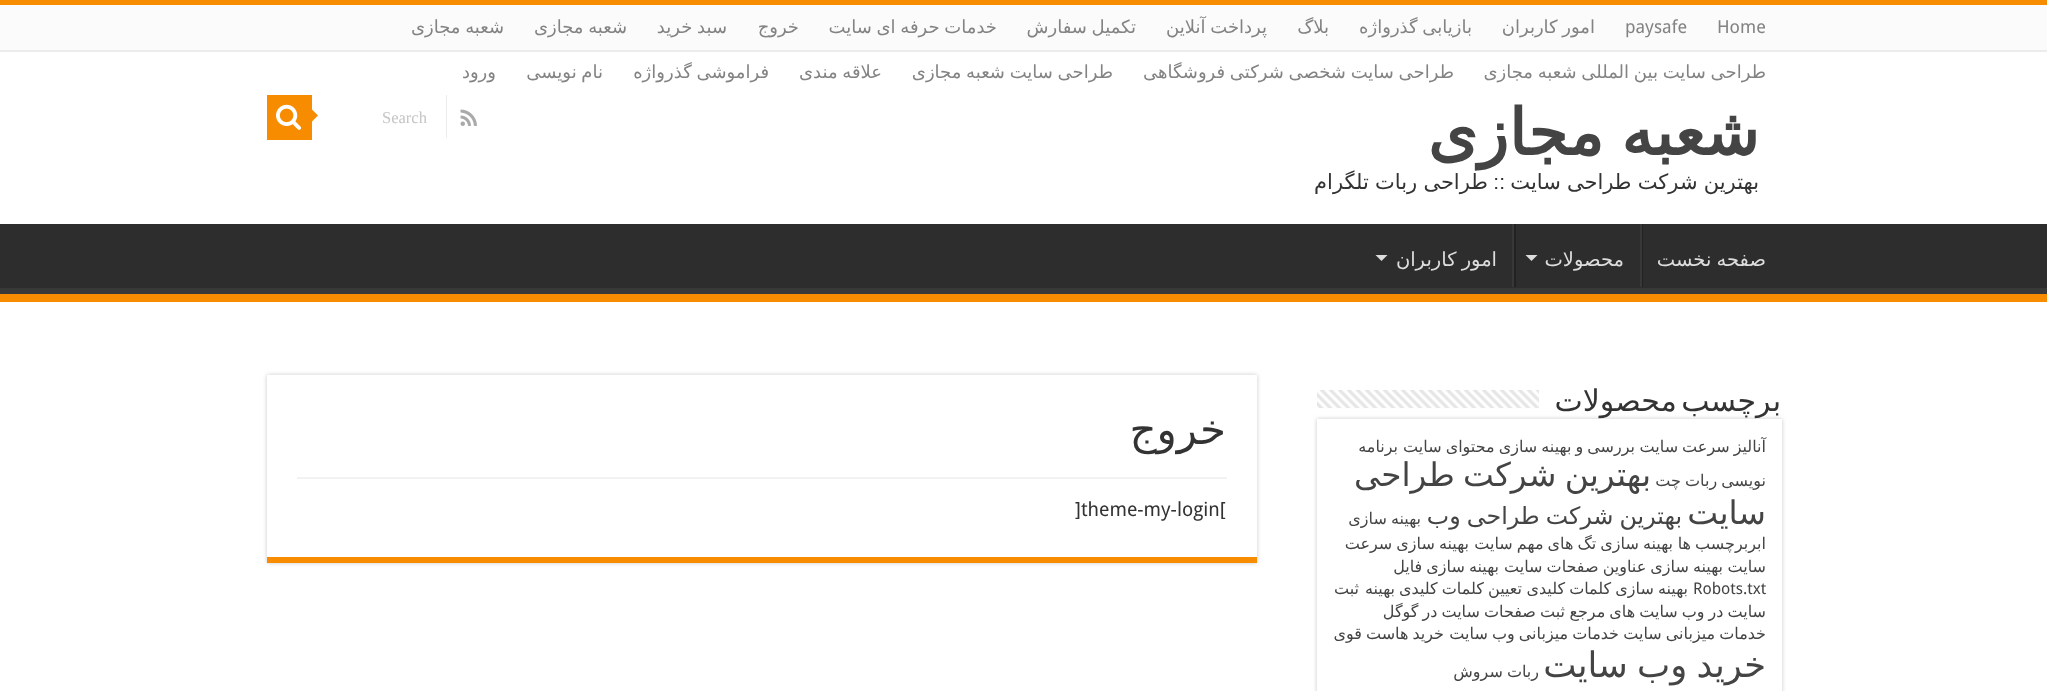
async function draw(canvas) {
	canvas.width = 2047;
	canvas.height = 691;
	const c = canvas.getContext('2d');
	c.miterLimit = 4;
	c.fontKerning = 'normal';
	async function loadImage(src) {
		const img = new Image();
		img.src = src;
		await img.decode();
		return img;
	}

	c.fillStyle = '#fff';
	c.fillRect(0, 0, 2047, 691);
	for (const [x, y, w, h, color] of [
		[0, 0, 2047, 5, '#f88c00'],
		[0, 5, 2047, 45, '#fbfbfb'],
		[0, 50, 2047, 2, '#ececec'],
	]) {
		c.fillStyle = color;
		c.fillRect(x, y, w, h);
	}
	c.font = '18px Droid Sans';
	c.fillStyle = '#838383';
	c.fillText('Home', 1717, 33);
	c.fillText('paysafe', 1625, 33);
	c.wordSpacing = '-1px';
	c.direction = 'rtl';
	c.font = '18px DejaVu Sans';
	c.fillText('امور کاربران', 1595, 33);
	c.fillText('بازیابی گذرواژه', 1472, 33);
	c.wordSpacing = '0px';
	c.fillText('بلاگ', 1329, 33);
	c.wordSpacing = '-1px';
	for (const [text, x, y] of [
		['پرداخت آنلاین', 1267, 33],
		['تکمیل سفارش', 1136, 33],
		['خدمات حرفه ای سایت', 997, 33],
	]) {
		c.fillText(text, x, y);
	}
	c.wordSpacing = '0px';
	c.fillText('خروج', 799, 33);
	c.wordSpacing = '-1px';
	for (const [text, x, y] of [
		['سبد خرید', 727, 33],
		['شعبه مجازی', 627, 33],
		['شعبه مجازی', 504, 33],
		['طراحی سایت بین المللی شعبه مجازی', 1766, 78],
		['طراحی سایت شخصی شرکتی فروشگاهی', 1454, 78],
		['طراحی سایت شعبه مجازی', 1113, 78],
		['علاقه مندی', 882, 78],
		['فراموشی گذرواژه', 769, 78],
		['نام نویسی', 603, 78],
	]) {
		c.fillText(text, x, y);
	}
	c.wordSpacing = '0px';
	c.fillText('ورود', 496, 78);
	c.drawImage(await loadImage('img1.png'), 460, 109, 17, 17);
	c.fillStyle = '#ececec';
	c.fillRect(446, 95, 1, 43);
	c.direction = 'ltr';
	c.font = '16.5px Liberation Serif';
	c.fillStyle = '#c5c5c5';
	c.fillText('Search', 382, 123);
	c.fillStyle = '#f88c00';
	c.fillRect(267, 95, 45, 45);
	c.drawImage(await loadImage('img2.png'), 276, 104, 25, 26);
	c.beginPath();
	c.moveTo(312, 121.5);
	c.lineTo(312, 109.5);
	c.lineTo(318, 115.5);
	c.closePath();
	c.fill();
	c.wordSpacing = '-3px';
	c.direction = 'rtl';
	c.font = 'bold 64px DejaVu Sans';
	c.fillStyle = '#444';
	c.fillText('شعبه مجازی', 1759, 155);
	c.wordSpacing = '-0.5px';
	c.font = '21px DejaVu Sans';
	c.fillStyle = '#333';
	c.fillText('بهترین شرکت طراحی سایت', 1759, 189);
	c.wordSpacing = '0px';
	c.font = '21px Liberation Sans';
	c.fillText('::', 1505, 189);
	c.wordSpacing = '-0.5px';
	c.font = '21px DejaVu Sans';
	c.fillText('طراحی ربات تلگرام', 1488, 189);
	c.fillStyle = '#2d2d2d';
	c.fillRect(0, 224, 2047, 64);
	c.save();
	c.beginPath();
	c.rect(0, 224, 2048, 70);
	c.clip();
	c.fillStyle = '#393939';
	c.beginPath();
	c.moveTo(-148, 75);
	c.lineTo(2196, 75);
	c.lineTo(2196, 442);
	c.lineTo(-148, 442);
	c.closePath();
	c.moveTo(-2, 214);
	c.lineTo(2046, 214);
	c.bezierCurveTo(2047, 214, 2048, 215, 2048, 216);
	c.lineTo(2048, 286);
	c.bezierCurveTo(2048, 287, 2047, 288, 2046, 288);
	c.lineTo(-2, 288);
	c.bezierCurveTo(-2, 288, -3, 287, -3, 286);
	c.lineTo(-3, 216);
	c.bezierCurveTo(-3, 215, -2, 214, -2, 214);
	c.closePath();
	c.fill('evenodd');
	c.restore();
	c.fillStyle = '#f88c00';
	c.fillRect(0, 294, 2047, 8);
	c.wordSpacing = '-1px';
	c.font = '19.5px DejaVu Sans';
	c.fillStyle = '#ddd';
	c.fillText('صفحه نخست', 1766, 266);
	c.fillStyle = '#222';
	c.fillRect(1642, 224, 1, 63);
	c.fillStyle = '#383838';
	c.fillRect(1640, 224, 2, 63);
	c.wordSpacing = '0px';
	c.fillStyle = '#ddd';
	c.fillText('محصولات', 1624, 266);
	c.beginPath();
	c.moveTo(1525.5, 255);
	c.lineTo(1537.5, 255);
	c.lineTo(1531.5, 261);
	c.closePath();
	c.fill();
	c.fillStyle = '#222';
	c.fillRect(1514, 224, 2, 63);
	c.fillStyle = '#383838';
	c.fillRect(1512, 224, 2, 63);
	c.wordSpacing = '-1px';
	c.fillStyle = '#ddd';
	c.fillText('امور کاربران', 1497, 266);
	c.beginPath();
	c.moveTo(1375.5, 255);
	c.lineTo(1387.5, 255);
	c.lineTo(1381.5, 261);
	c.closePath();
	c.fill();
	c.save();
	c.beginPath();
	c.moveTo(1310, 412);
	c.lineTo(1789, 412);
	c.lineTo(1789, 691);
	c.lineTo(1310, 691);
	c.closePath();
	c.moveTo(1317, 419);
	c.lineTo(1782, 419);
	c.lineTo(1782, 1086);
	c.lineTo(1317, 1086);
	c.closePath();
	c.clip('evenodd');
	c.fillStyle = '#cacaca';
	c.filter = 'blur(2px)';
	c.beginPath();
	c.rect(1317, 419, 465, 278);
	c.fill();
	c.filter = 'none';
	c.restore();
	c.wordSpacing = '-5px';
	c.font = '30px DejaVu Sans';
	c.fillStyle = '#333';
	c.fillText('برچسب محصولات', 1781, 411);
	c.drawImage(await loadImage('img3.png'), 1317, 390, 222, 18);
	c.wordSpacing = '-1px';
	c.font = '16px DejaVu Sans';
	c.fillStyle = '#444';
	c.fillText('آنالیز سرعت سایت', 1766, 452);
	c.fillText('بررسی و بهینه سازی محتوای سایت', 1635, 452);
	c.wordSpacing = '0px';
	c.fillText('برنامه', 1398, 452);
	c.wordSpacing = '-1px';
	c.fillText('نویسی ربات چت', 1766, 486);
	c.wordSpacing = '-2px';
	c.font = '32.75px DejaVu Sans';
	c.fillText('بهترین شرکت طراحی', 1651, 486);
	c.wordSpacing = '0px';
	c.fillText('سایت', 1766, 524);
	c.wordSpacing = '-1.5px';
	c.font = '23.75px DejaVu Sans';
	c.fillText('بهترین شرکت طراحی وب', 1682, 524);
	c.wordSpacing = '-1px';
	c.font = '16px DejaVu Sans';
	for (const [text, x, y] of [
		['بهینه سازی', 1421, 524],
		['ابربرچسب ها', 1766, 549],
		['بهینه سازی تگ های مهم سایت', 1673, 549],
		['بهینه سازی سرعت', 1469, 549],
	]) {
		c.fillText(text, x, y);
	}
	c.wordSpacing = '0px';
	c.fillText('سایت', 1766, 572);
	c.wordSpacing = '-1px';
	c.fillText('بهینه سازی عناوین صفحات سایت', 1723, 572);
	c.fillText('بهینه سازی فایل', 1499, 572);
	c.wordSpacing = '0px';
	c.direction = 'ltr';
	c.font = '16px Droid Sans';
	c.fillText('Robots.txt', 1693, 594);
	c.wordSpacing = '-1px';
	c.direction = 'rtl';
	c.font = '16px DejaVu Sans';
	c.fillText('بهینه سازی کلمات کلیدی', 1688, 594);
	c.fillText('تعیین کلمات کلیدی بهینه', 1522, 594);
	c.wordSpacing = '0px';
	c.fillText('ثبت', 1359, 594);
	c.wordSpacing = '-1px';
	for (const [text, x, y] of [
		['سایت در وب سایت های مرجع', 1766, 617],
		['ثبت صفحات سایت در گوگل', 1565, 617],
		['خدمات میزبانی سایت', 1766, 639],
		['خدمات میزبانی وب سایت', 1619, 639],
		['خرید هاست قوی', 1444, 639],
	]) {
		c.fillText(text, x, y);
	}
	c.wordSpacing = '-2px';
	c.font = '35.25px DejaVu Sans';
	c.fillText('خرید وب سایت', 1766, 677);
	c.wordSpacing = '-1px';
	c.font = '16px DejaVu Sans';
	c.fillText('ربات سروش', 1539, 677);
	c.fillStyle = '#cacaca';
	c.filter = 'blur(2px)';
	c.beginPath();
	c.rect(267, 375, 990, 188);
	c.fill();
	c.filter = 'none';
	c.fillStyle = '#fff';
	c.fillRect(267, 375, 990, 182);
	c.fillStyle = '#f88c00';
	c.fillRect(267, 557, 990, 6);
	c.wordSpacing = '0px';
	c.font = '42px DejaVu Sans';
	c.fillStyle = '#333';
	c.fillText('خروج', 1226, 444);
	c.fillStyle = '#f2f2f2';
	c.fillRect(297, 477, 930, 2);
	c.direction = 'ltr';
	c.font = '19.5px Droid Sans';
	c.fillStyle = '#333';
	c.fillText(']theme-my-login[', 1075, 516);
}

draw(document.querySelector('canvas'));
